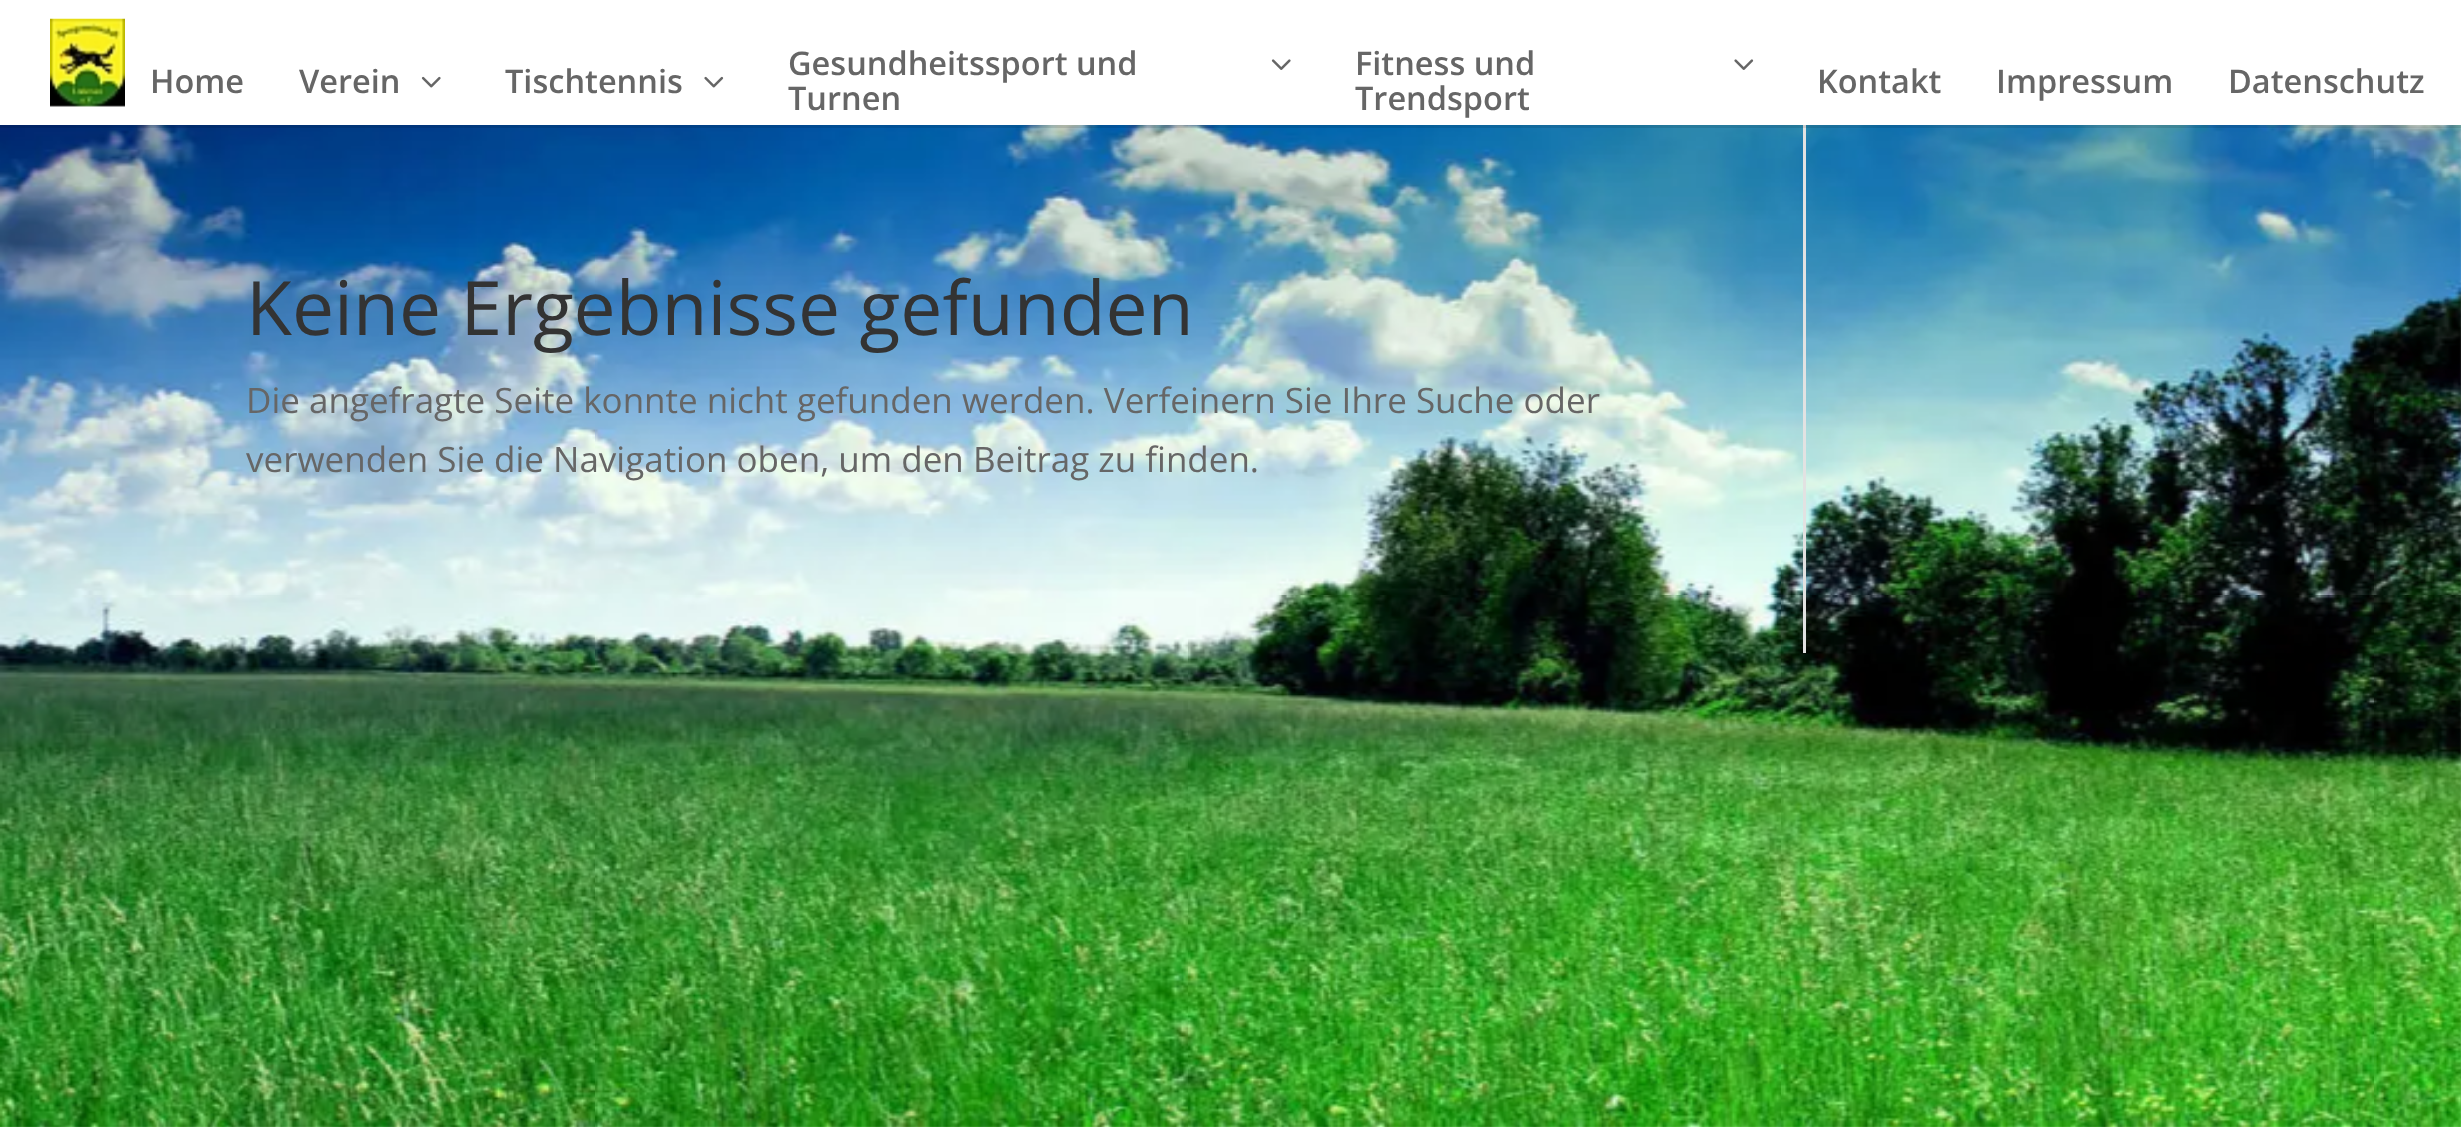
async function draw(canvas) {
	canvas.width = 2461;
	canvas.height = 1127;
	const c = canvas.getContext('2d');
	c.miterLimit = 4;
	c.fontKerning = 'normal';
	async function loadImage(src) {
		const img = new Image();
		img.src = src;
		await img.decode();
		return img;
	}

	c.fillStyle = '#fff';
	c.fillRect(0, 0, 2461, 1127);
	c.drawImage(await loadImage('img6.png'), 0, 125, 2461, 1002);
	c.fillStyle = '#e2e2e2';
	c.fillRect(1803, 125, 3, 528);
	c.fillStyle = '#0000001a';
	c.beginPath();
	c.moveTo(0, 125);
	c.lineTo(0, 128);
	c.lineTo(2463, 128);
	c.lineTo(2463, 3);
	c.lineTo(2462, 3);
	c.lineTo(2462, 125);
	c.closePath();
	c.fill();
	c.drawImage(await loadImage('img1.png'), 50, 18, 75, 89);
	c.font = '600 32.5px Open Sans';
	c.fillStyle = '#666';
	c.fillText('Home', 150, 93);
	c.fillText('Verein', 299, 93);
	c.drawImage(await loadImage('img2.png'), 421, 76, 20, 12);
	c.fillText('Tischtennis', 505, 93);
	c.drawImage(await loadImage('img3.png'), 704, 76, 20, 12);
	c.fillText('Gesundheitssport und', 788, 75);
	c.drawImage(await loadImage('img4.png'), 1271, 59, 20, 11);
	c.fillText('Turnen', 788, 110);
	c.fillText('Fitness und', 1355, 75);
	c.drawImage(await loadImage('img5.png'), 1734, 59, 20, 11);
	for (const [text, x, y] of [
		['Trendsport', 1355, 110],
		['Kontakt', 1817, 93],
		['Impressum', 1996, 93],
		['Datenschutz', 2228, 93],
	]) {
		c.fillText(text, x, y);
	}
	c.font = '75px Open Sans';
	c.fillStyle = '#333';
	c.fillText('Keine Ergebnisse gefunden', 246, 335);
	c.font = '35px Open Sans';
	c.fillStyle = '#666';
	c.fillText('Die angefragte Seite konnte nicht gefunden werden. Verfeinern Sie Ihre Suche oder', 246, 413);
	c.fillText('verwenden Sie die Navigation oben, um den Beitrag zu finden.', 246, 472);
}

draw(document.querySelector('canvas'));
